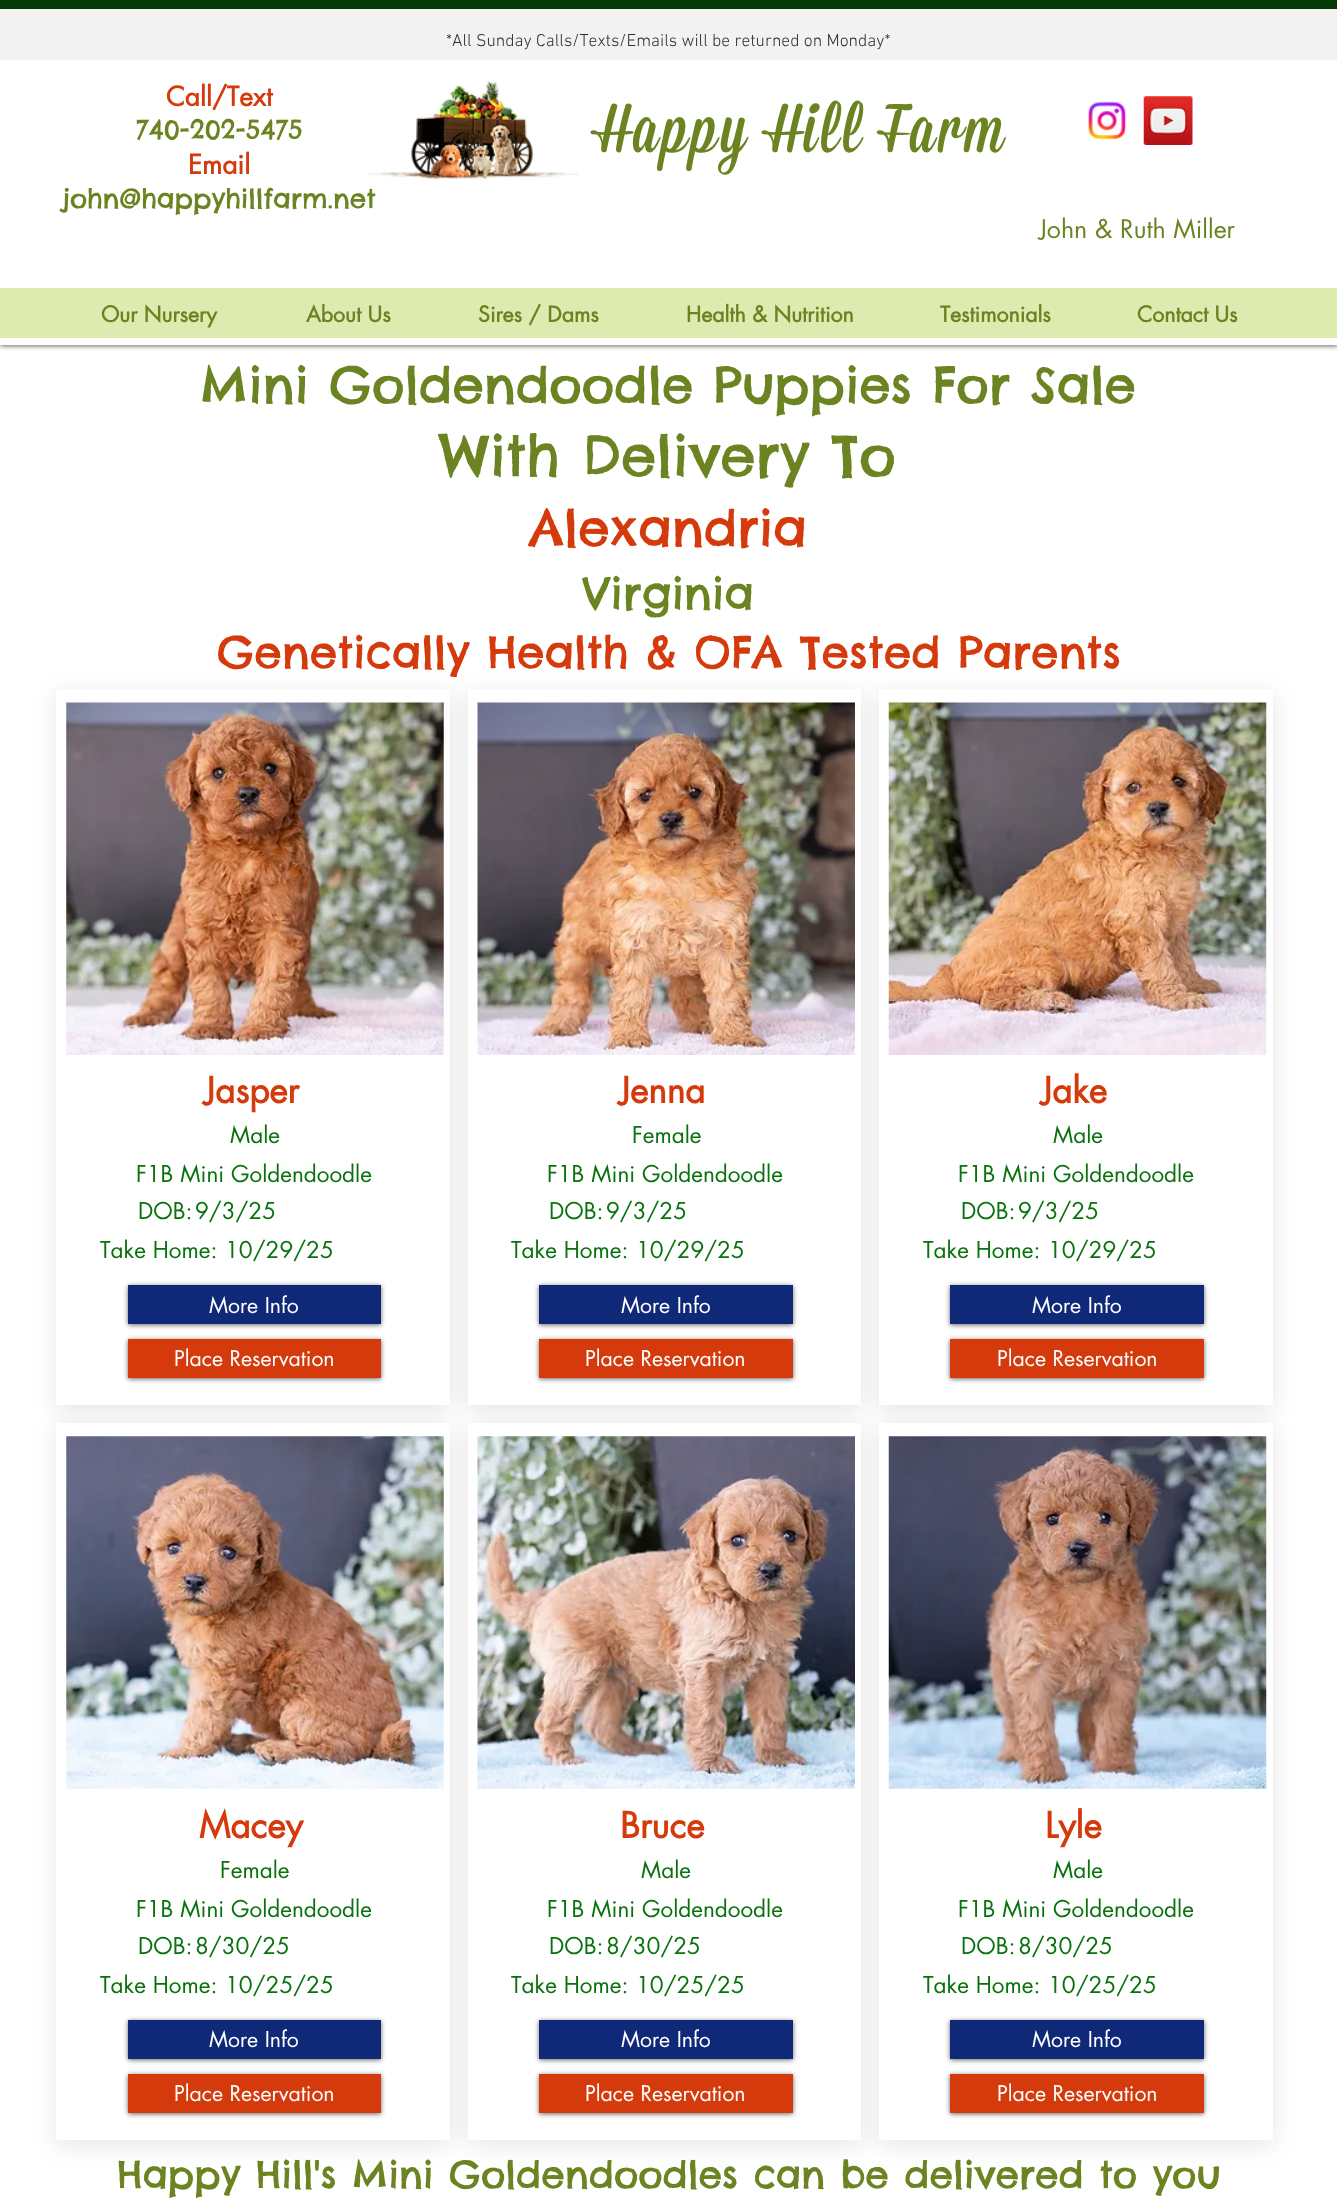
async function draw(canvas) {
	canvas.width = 1337;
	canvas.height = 2203;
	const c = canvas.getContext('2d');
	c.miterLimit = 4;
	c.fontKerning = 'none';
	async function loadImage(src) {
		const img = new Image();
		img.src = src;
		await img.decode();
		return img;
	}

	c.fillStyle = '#fff';
	c.fillRect(0, 0, 1337, 2203);
	c.save();
	c.beginPath();
	c.rect(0, 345, 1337, 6);
	c.clip();
	c.fillStyle = '#00000099';
	c.filter = 'blur(2.5px)';
	c.beginPath();
	c.rect(0, 1, 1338, 345);
	c.fill();
	c.filter = 'none';
	c.restore();
	c.fillStyle = '#053906';
	c.fillRect(0, 0, 1337, 9);
	c.fillStyle = '#f2f2f2';
	c.fillRect(0, 9, 1337, 51);
	c.font = '300 17.5px "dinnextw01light"';
	c.fillStyle = '#2e2e2e';
	c.fillText('*All Sunday Calls/Texts/Emails will be returned on Monday*', 446, 46);
	c.font = 'bold 26.25px futura';
	c.fillStyle = '#d43a0b';
	c.fillText('Call/Text', 166, 106);
	c.font = '26.25px Chelsea Market';
	c.fillStyle = '#6b8321';
	c.fillText('740-202-5475', 136, 139);
	c.font = 'bold 26.25px futura';
	c.fillStyle = '#d43a0b';
	c.fillText('Email', 188, 174);
	c.font = '26.25px Chelsea Market';
	c.fillStyle = '#6b8321';
	c.fillText('john@happyhillfarm.net', 62, 208);
	c.drawImage(await loadImage('img1.png'), 369, 81, 210, 99);
	c.letterSpacing = '3.5px';
	c.font = '68.75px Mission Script';
	c.fillText('Happy Hill Farm', 597, 152);
	c.drawImage(await loadImage('img2.png'), 1087, 101, 40, 39);
	c.drawImage(await loadImage('img3.png'), 1143, 96, 50, 49);
	c.letterSpacing = '0px';
	c.font = '25px futura';
	c.fillText('John & Ruth Miller', 1039, 238);
	c.fillStyle = '#ddebb1';
	c.fillRect(0, 288, 1337, 50);
	c.font = 'bold 21.25px futura';
	c.fillStyle = '#6b8321';
	for (const [text, x, y] of [
		['Our Nursery', 101, 322],
		['About Us', 306, 322],
		['Sires / Dams', 478, 322],
		['Health & Nutrition', 686, 322],
		['Testimonials', 940, 322],
		['Contact Us', 1137, 322],
	]) {
		c.fillText(text, x, y);
	}
	c.font = '50px Chelsea Market';
	c.fillText('Mini Goldendoodle Puppies For Sale', 200, 403);
	c.font = '56.25px Chelsea Market';
	c.fillText('With Delivery To', 439, 476);
	c.font = '50px Chelsea Market';
	c.fillStyle = '#d43a0b';
	c.fillText('Alexandria', 529, 546);
	c.font = '43.75px Chelsea Market';
	c.fillStyle = '#6b8321';
	c.fillText('Virginia', 583, 609);
	c.fillStyle = '#d43a0b';
	c.fillText('Genetically Health & OFA Tested Parents', 217, 668);
	c.fillStyle = '#0000001a';
	c.filter = 'blur(12.5px)';
	c.beginPath();
	c.rect(56, 694, 394, 716);
	c.fill();
	c.filter = 'none';
	c.fillStyle = '#fff';
	c.fillRect(56, 689, 394, 716);
	c.drawImage(await loadImage('img4.png'), 66, 702, 378, 353);
	c.font = 'bold 35px futura';
	c.fillStyle = '#d43a0b';
	c.fillText('Jasper', 204, 1103);
	c.font = '22.5px futura';
	c.fillStyle = '#09720d';
	for (const [text, x, y] of [
		['Male', 230, 1143],
		['F1B Mini Goldendoodle', 136, 1182],
		['DOB:', 138, 1219],
		['9/3/25', 195, 1219],
		['Take Home:', 100, 1258],
		['10/29/25', 225, 1258],
	]) {
		c.fillText(text, x, y);
	}
	c.fillStyle = '#00000099';
	c.filter = 'blur(2.5px)';
	c.beginPath();
	c.rect(128, 1286, 253, 39);
	c.fill();
	c.filter = 'none';
	c.fillStyle = '#102878';
	c.fillRect(128, 1285, 253, 39);
	c.font = '21.25px futura';
	c.fillStyle = '#fff';
	c.fillText('More Info', 209, 1313);
	c.fillStyle = '#00000099';
	c.filter = 'blur(2.5px)';
	c.beginPath();
	c.rect(128, 1340, 253, 39);
	c.fill();
	c.filter = 'none';
	c.fillStyle = '#d43a0b';
	c.fillRect(128, 1339, 253, 39);
	c.fillStyle = '#fff';
	c.fillText('Place Reservation', 174, 1366);
	c.fillStyle = '#0000001a';
	c.filter = 'blur(12.5px)';
	c.beginPath();
	c.rect(56, 1428, 394, 717);
	c.fill();
	c.filter = 'none';
	c.fillStyle = '#fff';
	c.fillRect(56, 1423, 394, 717);
	c.drawImage(await loadImage('img5.png'), 66, 1436, 378, 353);
	c.font = 'bold 35px futura';
	c.fillStyle = '#d43a0b';
	c.fillText('Macey', 199, 1838);
	c.font = '22.5px futura';
	c.fillStyle = '#09720d';
	for (const [text, x, y] of [
		['Female', 220, 1878],
		['F1B Mini Goldendoodle', 136, 1917],
		['DOB:', 138, 1954],
		['8/30/25', 195, 1954],
		['Take Home:', 100, 1993],
		['10/25/25', 225, 1993],
	]) {
		c.fillText(text, x, y);
	}
	c.fillStyle = '#00000099';
	c.filter = 'blur(2.5px)';
	c.beginPath();
	c.rect(128, 2021, 253, 39);
	c.fill();
	c.filter = 'none';
	c.fillStyle = '#102878';
	c.fillRect(128, 2020, 253, 39);
	c.font = '21.25px futura';
	c.fillStyle = '#fff';
	c.fillText('More Info', 209, 2047);
	c.fillStyle = '#00000099';
	c.filter = 'blur(2.5px)';
	c.beginPath();
	c.rect(128, 2075, 253, 39);
	c.fill();
	c.filter = 'none';
	c.fillStyle = '#d43a0b';
	c.fillRect(128, 2074, 253, 39);
	c.fillStyle = '#fff';
	c.fillText('Place Reservation', 174, 2101);
	c.fillStyle = '#0000001a';
	c.filter = 'blur(12.5px)';
	c.beginPath();
	c.rect(468, 694, 393, 716);
	c.fill();
	c.filter = 'none';
	c.fillStyle = '#fff';
	c.fillRect(468, 689, 393, 716);
	c.drawImage(await loadImage('img6.png'), 477, 702, 378, 353);
	c.font = 'bold 35px futura';
	c.fillStyle = '#d43a0b';
	c.fillText('Jenna', 619, 1103);
	c.font = '22.5px futura';
	c.fillStyle = '#09720d';
	for (const [text, x, y] of [
		['Female', 632, 1143],
		['F1B Mini Goldendoodle', 547, 1182],
		['DOB:', 549, 1219],
		['9/3/25', 606, 1219],
		['Take Home:', 511, 1258],
		['10/29/25', 636, 1258],
	]) {
		c.fillText(text, x, y);
	}
	c.fillStyle = '#00000099';
	c.filter = 'blur(2.5px)';
	c.beginPath();
	c.rect(539, 1286, 254, 39);
	c.fill();
	c.filter = 'none';
	c.fillStyle = '#102878';
	c.fillRect(539, 1285, 254, 39);
	c.font = '21.25px futura';
	c.fillStyle = '#fff';
	c.fillText('More Info', 621, 1313);
	c.fillStyle = '#00000099';
	c.filter = 'blur(2.5px)';
	c.beginPath();
	c.rect(539, 1340, 254, 39);
	c.fill();
	c.filter = 'none';
	c.fillStyle = '#d43a0b';
	c.fillRect(539, 1339, 254, 39);
	c.fillStyle = '#fff';
	c.fillText('Place Reservation', 585, 1366);
	c.fillStyle = '#0000001a';
	c.filter = 'blur(12.5px)';
	c.beginPath();
	c.rect(468, 1428, 393, 717);
	c.fill();
	c.filter = 'none';
	c.fillStyle = '#fff';
	c.fillRect(468, 1423, 393, 717);
	c.drawImage(await loadImage('img7.png'), 477, 1436, 378, 353);
	c.font = 'bold 35px futura';
	c.fillStyle = '#d43a0b';
	c.fillText('Bruce', 620, 1838);
	c.font = '22.5px futura';
	c.fillStyle = '#09720d';
	for (const [text, x, y] of [
		['Male', 641, 1878],
		['F1B Mini Goldendoodle', 547, 1917],
		['DOB:', 549, 1954],
		['8/30/25', 606, 1954],
		['Take Home:', 511, 1993],
		['10/25/25', 636, 1993],
	]) {
		c.fillText(text, x, y);
	}
	c.fillStyle = '#00000099';
	c.filter = 'blur(2.5px)';
	c.beginPath();
	c.rect(539, 2021, 254, 39);
	c.fill();
	c.filter = 'none';
	c.fillStyle = '#102878';
	c.fillRect(539, 2020, 254, 39);
	c.font = '21.25px futura';
	c.fillStyle = '#fff';
	c.fillText('More Info', 621, 2047);
	c.fillStyle = '#00000099';
	c.filter = 'blur(2.5px)';
	c.beginPath();
	c.rect(539, 2075, 254, 39);
	c.fill();
	c.filter = 'none';
	c.fillStyle = '#d43a0b';
	c.fillRect(539, 2074, 254, 39);
	c.fillStyle = '#fff';
	c.fillText('Place Reservation', 585, 2101);
	c.fillStyle = '#0000001a';
	c.filter = 'blur(12.5px)';
	c.beginPath();
	c.rect(879, 694, 394, 716);
	c.fill();
	c.filter = 'none';
	c.fillStyle = '#fff';
	c.fillRect(879, 689, 394, 716);
	c.drawImage(await loadImage('img8.png'), 888, 702, 379, 353);
	c.font = 'bold 35px futura';
	c.fillStyle = '#d43a0b';
	c.fillText('Jake', 1041, 1103);
	c.font = '22.5px futura';
	c.fillStyle = '#09720d';
	for (const [text, x, y] of [
		['Male', 1053, 1143],
		['F1B Mini Goldendoodle', 958, 1182],
		['DOB:', 961, 1219],
		['9/3/25', 1018, 1219],
		['Take Home:', 923, 1258],
		['10/29/25', 1048, 1258],
	]) {
		c.fillText(text, x, y);
	}
	c.fillStyle = '#00000099';
	c.filter = 'blur(2.5px)';
	c.beginPath();
	c.rect(950, 1286, 254, 39);
	c.fill();
	c.filter = 'none';
	c.fillStyle = '#102878';
	c.fillRect(950, 1285, 254, 39);
	c.font = '21.25px futura';
	c.fillStyle = '#fff';
	c.fillText('More Info', 1032, 1313);
	c.fillStyle = '#00000099';
	c.filter = 'blur(2.5px)';
	c.beginPath();
	c.rect(950, 1340, 254, 39);
	c.fill();
	c.filter = 'none';
	c.fillStyle = '#d43a0b';
	c.fillRect(950, 1339, 254, 39);
	c.fillStyle = '#fff';
	c.fillText('Place Reservation', 997, 1366);
	c.fillStyle = '#0000001a';
	c.filter = 'blur(12.5px)';
	c.beginPath();
	c.rect(879, 1428, 394, 717);
	c.fill();
	c.filter = 'none';
	c.fillStyle = '#fff';
	c.fillRect(879, 1423, 394, 717);
	c.drawImage(await loadImage('img9.png'), 888, 1436, 379, 353);
	c.font = 'bold 35px futura';
	c.fillStyle = '#d43a0b';
	c.fillText('Lyle', 1045, 1838);
	c.font = '22.5px futura';
	c.fillStyle = '#09720d';
	for (const [text, x, y] of [
		['Male', 1053, 1878],
		['F1B Mini Goldendoodle', 958, 1917],
		['DOB:', 961, 1954],
		['8/30/25', 1018, 1954],
		['Take Home:', 923, 1993],
		['10/25/25', 1048, 1993],
	]) {
		c.fillText(text, x, y);
	}
	c.fillStyle = '#00000099';
	c.filter = 'blur(2.5px)';
	c.beginPath();
	c.rect(950, 2021, 254, 39);
	c.fill();
	c.filter = 'none';
	c.fillStyle = '#102878';
	c.fillRect(950, 2020, 254, 39);
	c.font = '21.25px futura';
	c.fillStyle = '#fff';
	c.fillText('More Info', 1032, 2047);
	c.fillStyle = '#00000099';
	c.filter = 'blur(2.5px)';
	c.beginPath();
	c.rect(950, 2075, 254, 39);
	c.fill();
	c.filter = 'none';
	c.fillStyle = '#d43a0b';
	c.fillRect(950, 2074, 254, 39);
	c.fillStyle = '#fff';
	c.fillText('Place Reservation', 997, 2101);
	c.font = '37.5px Chelsea Market';
	c.fillStyle = '#6b8321';
	c.fillText('Happy Hill\'s Mini Goldendoodles can be delivered to you', 117, 2188);
}

draw(document.querySelector('canvas'));
